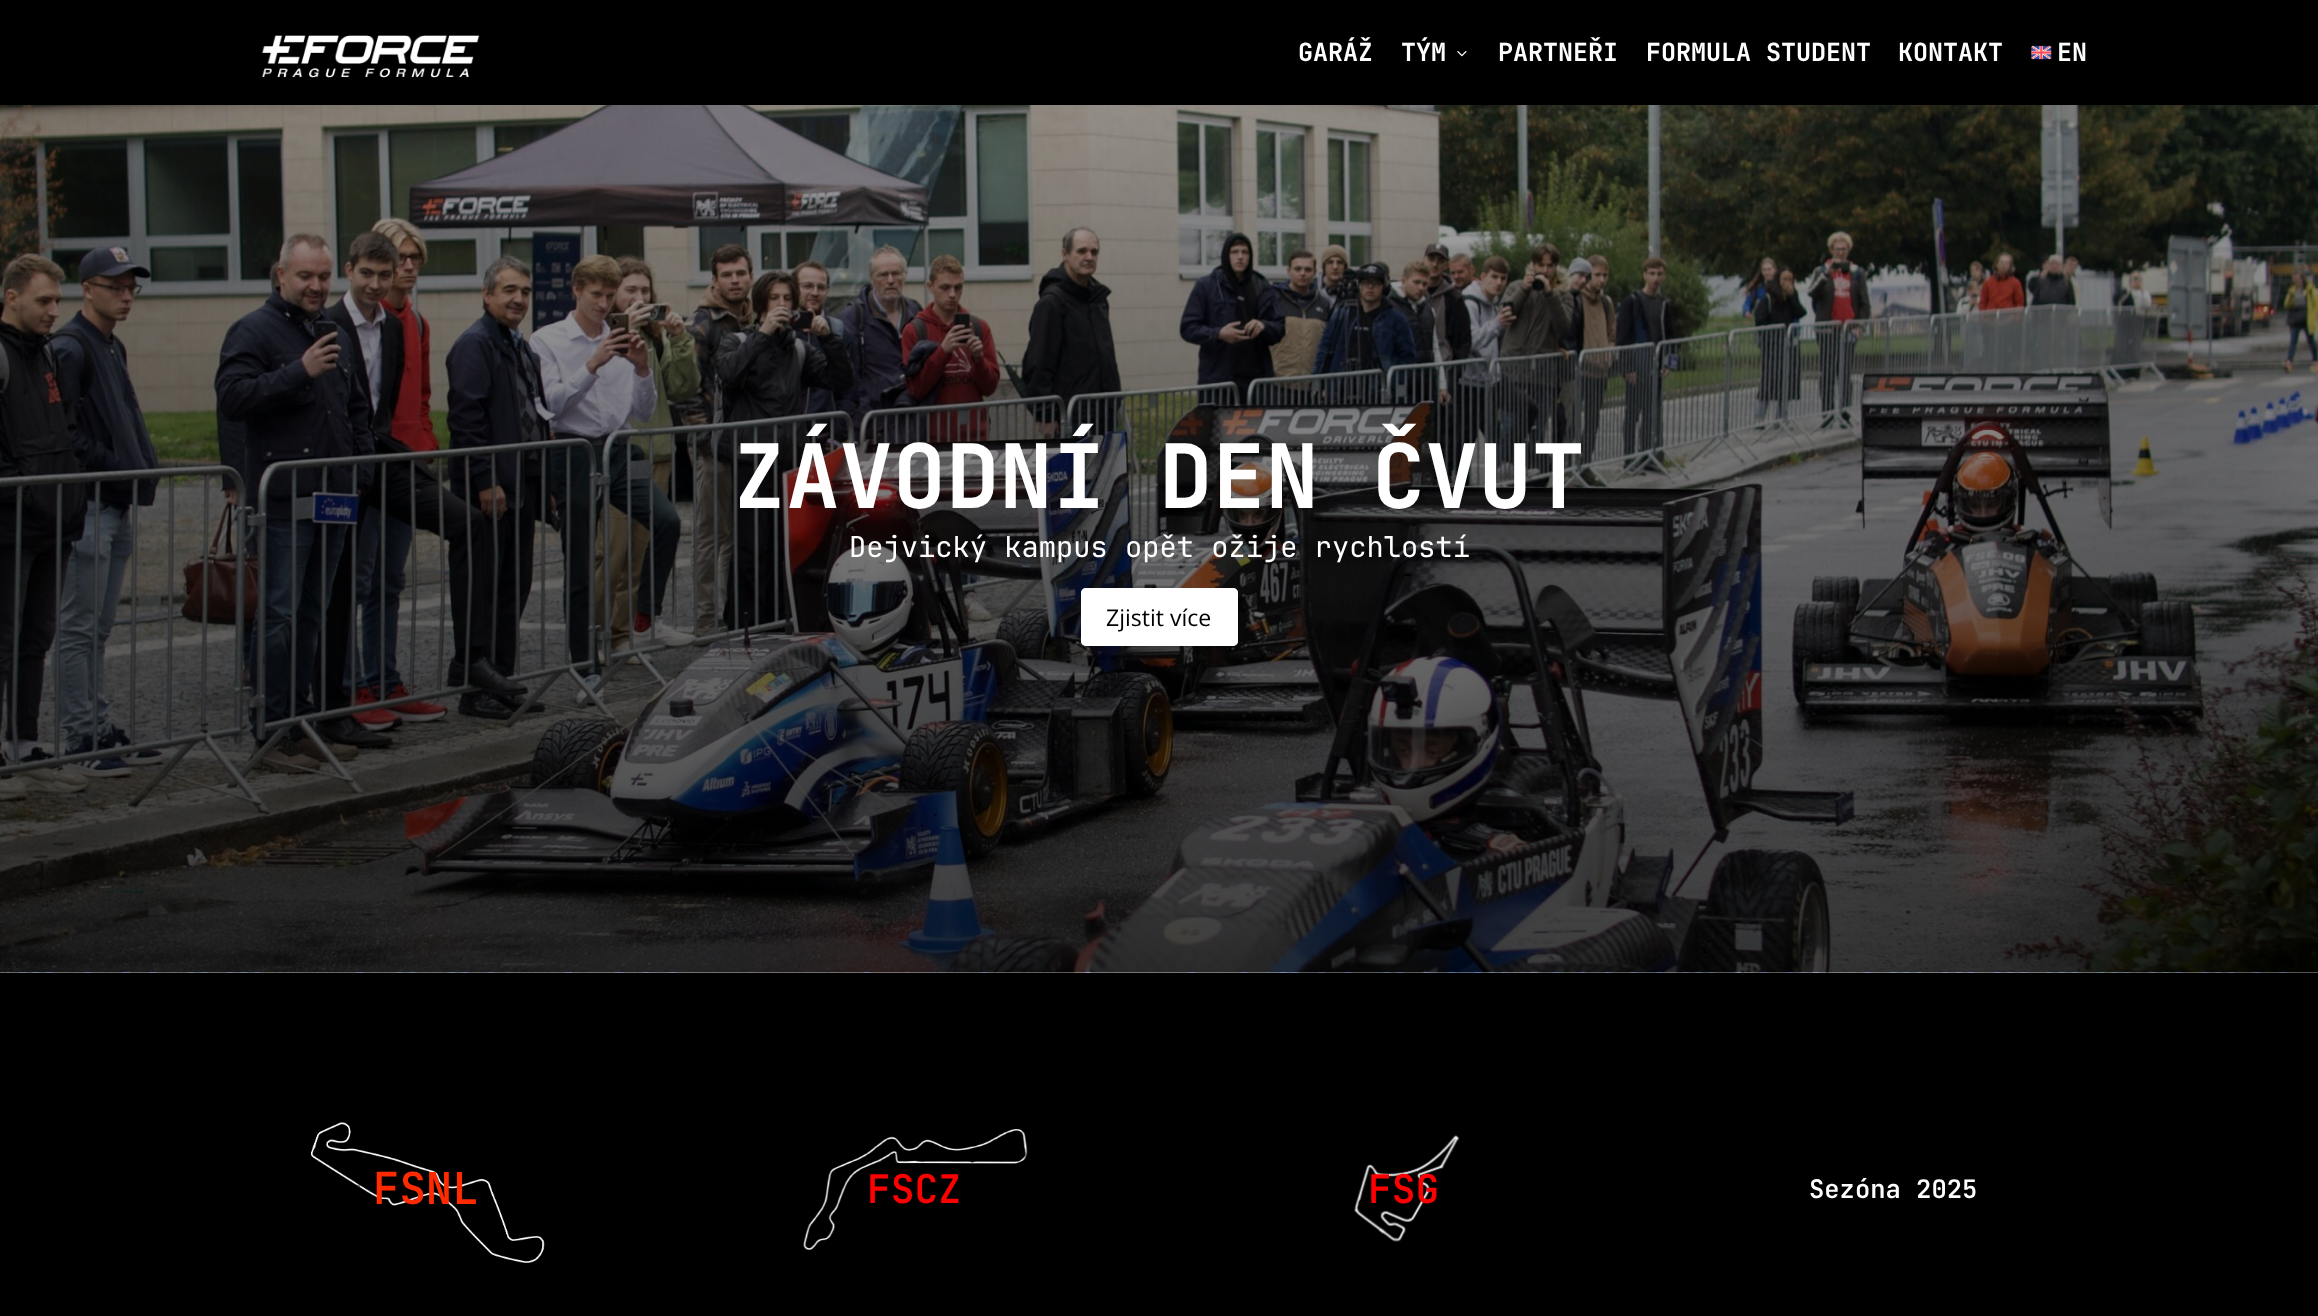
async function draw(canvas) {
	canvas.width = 2318;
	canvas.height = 1316;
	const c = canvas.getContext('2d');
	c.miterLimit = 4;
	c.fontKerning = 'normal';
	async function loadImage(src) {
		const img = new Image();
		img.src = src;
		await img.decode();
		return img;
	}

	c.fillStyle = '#fff';
	c.fillRect(0, 0, 2318, 1316);
	c.fillStyle = '#000';
	c.fillRect(0, 0, 2318, 105);
	c.drawImage(await loadImage('img1.png'), 262, 35, 218, 43);
	c.font = 'bold 25px JetBrains Mono';
	c.fillStyle = '#fff';
	c.fillText('GARÁŽ', 1298, 61);
	c.fillText('TÝM', 1401, 61);
	c.drawImage(await loadImage('img2.png'), 1457, 51, 10, 6);
	for (const [text, x, y] of [
		['PARTNEŘI', 1498, 61],
		['FORMULA STUDENT', 1646, 61],
		['KONTAKT', 1898, 61],
	]) {
		c.fillText(text, x, y);
	}
	c.drawImage(await loadImage('img3.png'), 2031, 45, 21, 15);
	c.fillText('EN', 2057, 61);
	c.drawImage(await loadImage('img4.png'), 0, 972, 2318, 1);
	c.drawImage(await loadImage('img5.png'), 0, 105, 2318, 868);
	c.font = 'bold 88.75px JetBrains Mono';
	c.fillText('ZÁVODNÍ DEN ČVUT', 733, 508);
	c.font = '28.75px JetBrains Mono';
	c.fillText('Dejvický kampus opět ožije rychlostí', 849, 557);
	c.beginPath();
	c.roundRect(1081, 588, 157, 58, 5);
	c.fill();
	c.beginPath();
	c.roundRect(1082.5, 589.5, 154, 55, 3.5);
	c.strokeStyle = '#ffffffc4';
	c.lineWidth = 3;
	c.stroke();
	c.font = '23px Open Sans';
	c.fillStyle = '#000';
	c.fillText('Zjistit více', 1106, 626);
	c.fillRect(0, 973, 2318, 343);
	c.drawImage(await loadImage('img6.png'), 310, 1122, 235, 141);
	c.font = '600 44px JetBrains Mono';
	c.fillStyle = '#ff2a00';
	c.fillText('FSNL', 373, 1204);
	c.drawImage(await loadImage('img7.png'), 803, 1129, 225, 121);
	c.font = '600 39.5px JetBrains Mono';
	c.fillStyle = '#f00';
	c.fillText('FSCZ', 867, 1203);
	c.drawImage(await loadImage('img8.png'), 1354, 1135, 106, 107);
	c.fillText('FSG', 1368, 1203);
	c.font = '600 25.5px JetBrains Mono';
	c.fillStyle = '#fff';
	c.fillText('Sezóna 2025', 1809, 1198);
}

draw(document.querySelector('canvas'));
